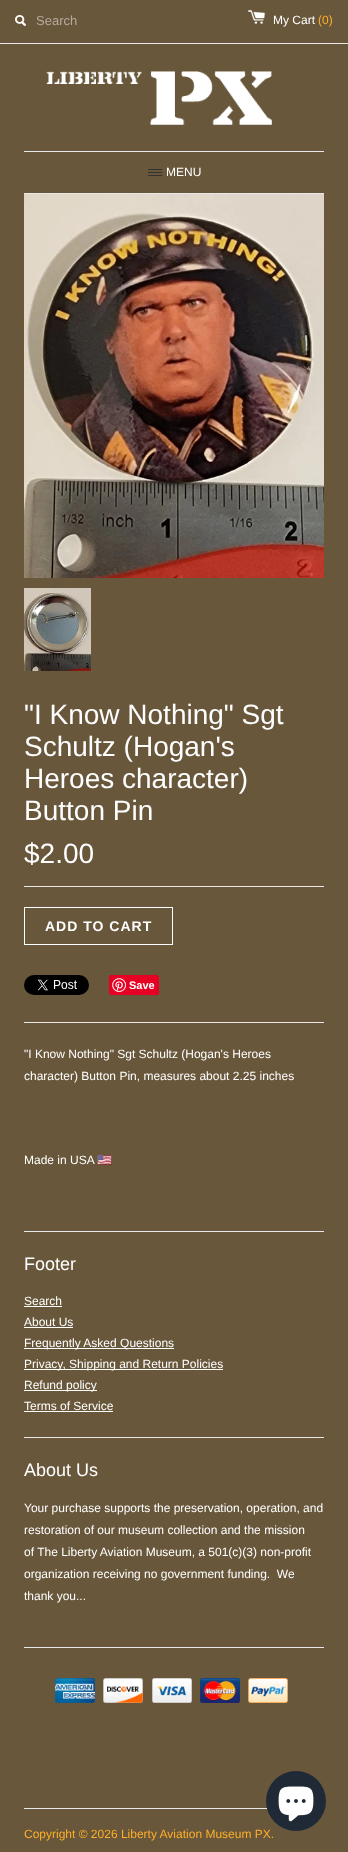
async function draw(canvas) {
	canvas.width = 348;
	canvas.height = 1852;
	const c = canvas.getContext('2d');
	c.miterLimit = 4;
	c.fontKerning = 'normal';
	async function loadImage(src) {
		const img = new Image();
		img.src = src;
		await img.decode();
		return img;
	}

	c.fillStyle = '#68573b';
	c.fillRect(0, 0, 348, 1852);
	c.fillStyle = '#e8e8e8';
	c.fillRect(0, 43, 348, 1);
	c.drawImage(await loadImage('img1.png'), 15, 15, 11, 11);
	c.font = '13px Liberation Sans';
	c.fillStyle = '#b4ab9d';
	c.fillText('Search', 36, 25);
	c.drawImage(await loadImage('img2.png'), 248, 10, 17, 14);
	c.font = '12px Liberation Sans';
	c.fillStyle = '#fff';
	c.fillText('My Cart', 273, 24);
	c.fillStyle = '#ffaf29';
	c.fillText('(0)', 318, 24);
	c.drawImage(await loadImage('img3.png'), 46, 71, 226, 54);
	c.fillStyle = '#e8e8e8';
	c.fillRect(24, 151, 300, 1);
	c.drawImage(await loadImage('img4.png'), 148, 169, 15, 7);
	c.fillStyle = '#fff';
	c.fillText('MENU', 166, 176);
	c.fillStyle = '#e8e8e8';
	c.fillRect(24, 193, 300, 1);
	c.drawImage(await loadImage('img5.png'), 24, 194, 300, 384);
	c.drawImage(await loadImage('img6.png'), 24, 588, 67, 83);
	c.font = '28px Liberation Sans';
	c.fillStyle = '#fff';
	for (const [text, x, y] of [
		['"I Know Nothing" Sgt', 24, 724],
		['Schultz (Hogan\'s', 24, 756],
		['Heroes character)', 24, 788],
		['Button Pin', 24, 820],
		['$2.00', 24, 863],
	]) {
		c.fillText(text, x, y);
	}
	c.fillStyle = '#e8e8e8';
	c.fillRect(24, 886, 300, 1);
	c.strokeStyle = '#fff';
	c.strokeRect(24.5, 907.5, 148, 37);
	c.letterSpacing = '1px';
	c.font = 'bold 14px Liberation Sans';
	c.fillStyle = '#fff';
	c.fillText('ADD TO CART', 45, 931);
	c.drawImage(await loadImage('img7.png'), 24, 975, 65, 20);
	c.fillStyle = '#e60023';
	c.beginPath();
	c.roundRect(109, 975, 50, 20, 2);
	c.fill();
	c.drawImage(await loadImage('img8.png'), 112, 978, 14, 14);
	c.letterSpacing = '0px';
	c.font = 'bold 11px Liberation Sans';
	c.fillStyle = '#fff';
	c.fillText('Save', 129, 989);
	c.fillStyle = '#e8e8e8';
	c.fillRect(24, 1022, 300, 1);
	c.font = '12px Liberation Sans';
	c.fillStyle = '#fff';
	for (const [text, x, y] of [
		['"I Know Nothing" Sgt Schultz (Hogan\'s Heroes', 24, 1058],
		['character) Button Pin, measures about 2.25 inches', 24, 1080],
		['Made in USA', 24, 1164],
	]) {
		c.fillText(text, x, y);
	}
	c.font = '12px Noto Color Emoji';
	c.fillText('🇺🇸', 97, 1164);
	c.fillStyle = '#e8e8e8';
	c.fillRect(24, 1231, 300, 1);
	c.fillRect(24, 1437, 300, 1);
	c.font = '18px Liberation Sans';
	c.fillStyle = '#fff';
	c.fillText('Footer', 24, 1270);
	c.font = '12px Liberation Sans';
	c.fillText('Search', 24, 1305);
	c.fillRect(24, 1306, 38, 1);
	c.fillText('About Us', 24, 1326);
	c.fillRect(24, 1327, 49, 1);
	c.fillRect(24, 1348, 150, 1);
	c.fillText('Frequently Asked Questions', 24, 1347);
	c.fillRect(24, 1369, 199, 1);
	c.fillText('Privacy, Shipping and Return Policies', 24, 1368);
	c.fillRect(24, 1390, 73, 1);
	c.fillText('Refund policy', 24, 1389);
	c.fillText('Terms of Service', 24, 1410);
	c.fillRect(24, 1411, 89, 1);
	c.fillStyle = '#e8e8e8';
	c.fillRect(24, 1647, 300, 1);
	c.font = '18px Liberation Sans';
	c.fillStyle = '#fff';
	c.fillText('About Us', 24, 1476);
	c.font = '12px Liberation Sans';
	for (const [text, x, y] of [
		['Your purchase supports the preservation, operation, and', 24, 1512],
		['restoration of our museum collection and the mission', 24, 1534],
		['of The Liberty Aviation Museum, a 501(c)(3) non-profit', 24, 1556],
		['organization receiving no government funding.  We', 24, 1578],
		['thank you...', 24, 1600],
	]) {
		c.fillText(text, x, y);
	}
	c.fillStyle = '#e8e8e8';
	c.fillRect(24, 1808, 244, 1);
	c.drawImage(await loadImage('img9.png'), 55, 1678, 40, 25);
	c.drawImage(await loadImage('img10.png'), 103, 1678, 40, 25);
	c.drawImage(await loadImage('img11.png'), 152, 1678, 40, 25);
	c.drawImage(await loadImage('img12.png'), 200, 1678, 40, 25);
	c.drawImage(await loadImage('img13.png'), 248, 1678, 40, 25);
	c.fillStyle = '#ffaf29';
	c.fillText('Copyright © 2026 Liberty Aviation Museum PX.', 24, 1838);
	c.fillStyle = '#202a36';
	c.beginPath();
	c.arc(296, 1801, 30, 0, 2 * Math.PI);
	c.fill();
	c.drawImage(await loadImage('img14.png'), 278, 1786, 36, 36);
}

draw(document.querySelector('canvas'));
